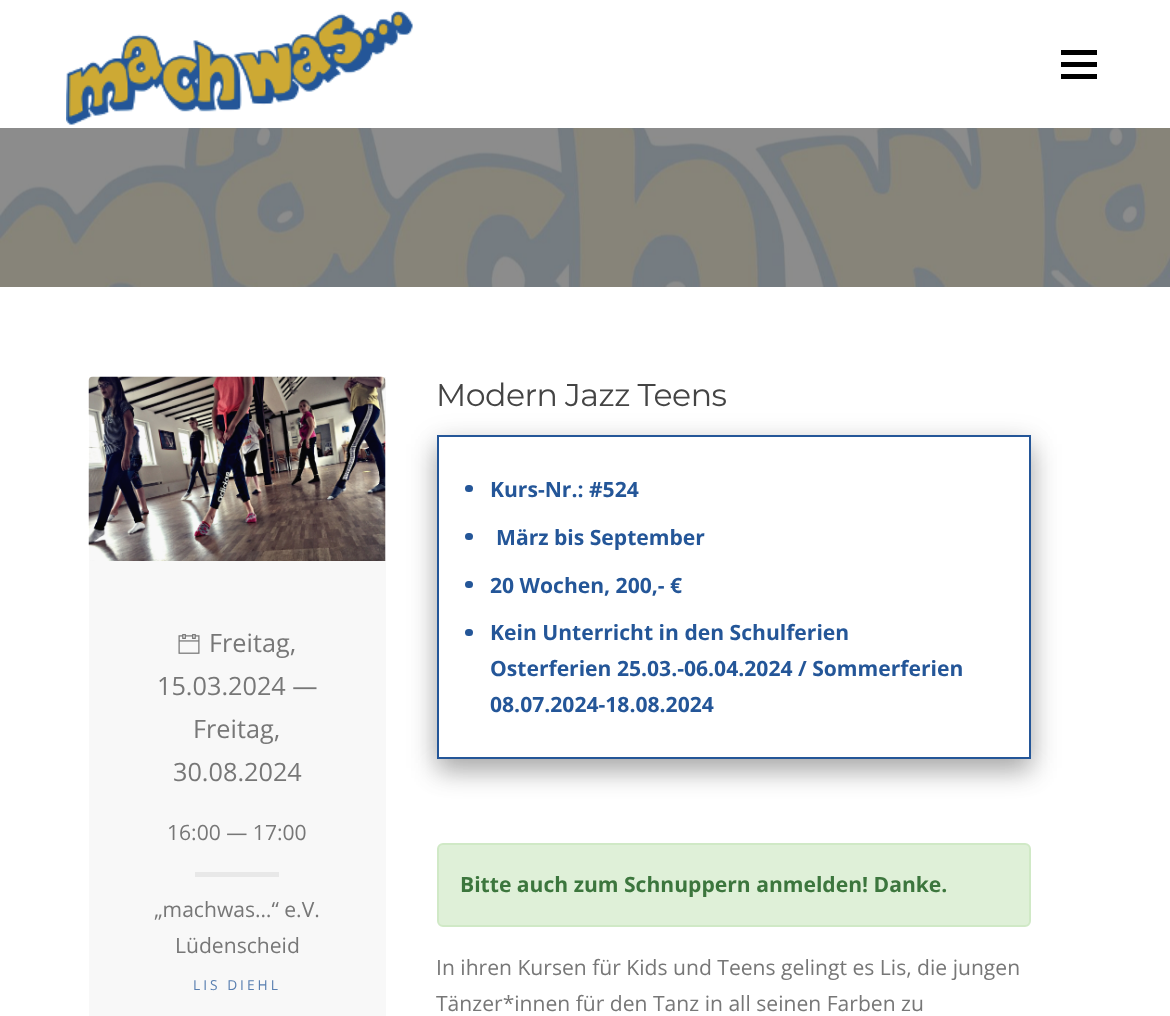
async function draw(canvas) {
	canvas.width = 1170;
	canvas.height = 1016;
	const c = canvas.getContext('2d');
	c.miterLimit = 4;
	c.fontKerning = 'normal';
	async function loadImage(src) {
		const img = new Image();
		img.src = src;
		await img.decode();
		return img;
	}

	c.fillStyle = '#fff';
	c.fillRect(0, 0, 1170, 1016);
	c.drawImage(await loadImage('img1.png'), 66, 10, 347, 115);
	for (const [x, y, w, h, color] of [
		[1061, 62, 36, 5, '#000'],
		[1061, 50, 36, 5, '#000'],
		[1061, 74, 36, 5, '#000'],
	]) {
		c.fillStyle = color;
		c.fillRect(x, y, w, h);
	}
	c.drawImage(await loadImage('img2.png'), 0, 128, 1170, 159);
	c.drawImage(await loadImage('img3.png'), 88, 376, 298, 185);
	c.drawImage(await loadImage('img4.png'), 178, 634, 22, 20);
	c.fillStyle = '#7777770d';
	c.fillRect(89, 377, 297, 639);
	c.font = '25.25px Open Sans';
	c.fillStyle = '#777';
	for (const [text, x, y] of [
		['Freitag,', 209, 652],
		['15.03.2024 —', 157, 695],
		['Freitag,', 193, 738],
		['30.08.2024', 173, 781],
	]) {
		c.fillText(text, x, y);
	}
	c.font = '21.1px Open Sans';
	c.fillText('16:00 — 17:00', 167, 840);
	c.fillStyle = '#e8e8e8';
	c.fillRect(195, 872, 84, 5);
	c.fillStyle = '#777';
	c.fillText('„machwas…“ e.V.', 154, 917);
	c.fillText('Lüdenscheid', 175, 953);
	c.letterSpacing = '3px';
	c.font = '13.75px Open Sans';
	c.fillStyle = '#597fb0';
	c.fillText('LIS DIEHL', 193, 990);
	c.letterSpacing = '-0.5px';
	c.font = '31.6px Montserrat';
	c.fillStyle = '#444';
	c.fillText('Modern Jazz Teens', 436, 406);
	c.fillStyle = '#00000030';
	c.filter = 'blur(15px)';
	c.beginPath();
	c.rect(437, 444, 594, 324);
	c.fill();
	c.filter = 'none';
	c.fillStyle = '#00000033';
	c.filter = 'blur(12px)';
	c.beginPath();
	c.rect(437, 447, 594, 324);
	c.fill();
	c.filter = 'none';
	c.fillStyle = '#fff';
	c.beginPath();
	c.rect(438, 436, 592, 322);
	c.fill();
	c.strokeStyle = '#245698';
	c.lineWidth = 2;
	c.stroke();
	c.fillStyle = '#245698';
	c.beginPath();
	c.roundRect(465, 485, 8, 7, 3.5);
	c.fill();
	c.letterSpacing = '0px';
	c.font = 'bold 21.1px Open Sans';
	c.fillText('Kurs-Nr.: #524', 490, 497);
	c.beginPath();
	c.roundRect(465, 533, 8, 7, 3.5);
	c.fill();
	c.fillText('März bis September', 496, 545);
	c.beginPath();
	c.roundRect(465, 581, 8, 7, 3.5);
	c.fill();
	c.fillText('20 Wochen, 200,- €', 490, 593);
	c.beginPath();
	c.roundRect(465, 629, 8, 7, 3.5);
	c.fill();
	for (const [text, x, y] of [
		['Kein Unterricht in den Schulferien', 490, 640],
		['Osterferien 25.03.-06.04.2024 / Sommerferien', 490, 676],
		['08.07.2024-18.08.2024', 490, 712],
	]) {
		c.fillText(text, x, y);
	}
	c.fillStyle = '#dff0d8';
	c.beginPath();
	c.roundRect(438, 844, 592, 82, 5);
	c.fill();
	c.strokeStyle = '#d0e9c6';
	c.stroke();
	c.fillStyle = '#3c763d';
	c.fillText('Bitte auch zum Schnuppern anmelden! Danke.', 460, 892);
	c.font = '21.1px Open Sans';
	c.fillStyle = '#777';
	c.fillText('In ihren Kursen für Kids und Teens gelingt es Lis, die jungen', 436, 975);
	c.fillText('Tänzer*innen für den Tanz in all seinen Farben zu', 436, 1011);
}

draw(document.querySelector('canvas'));
